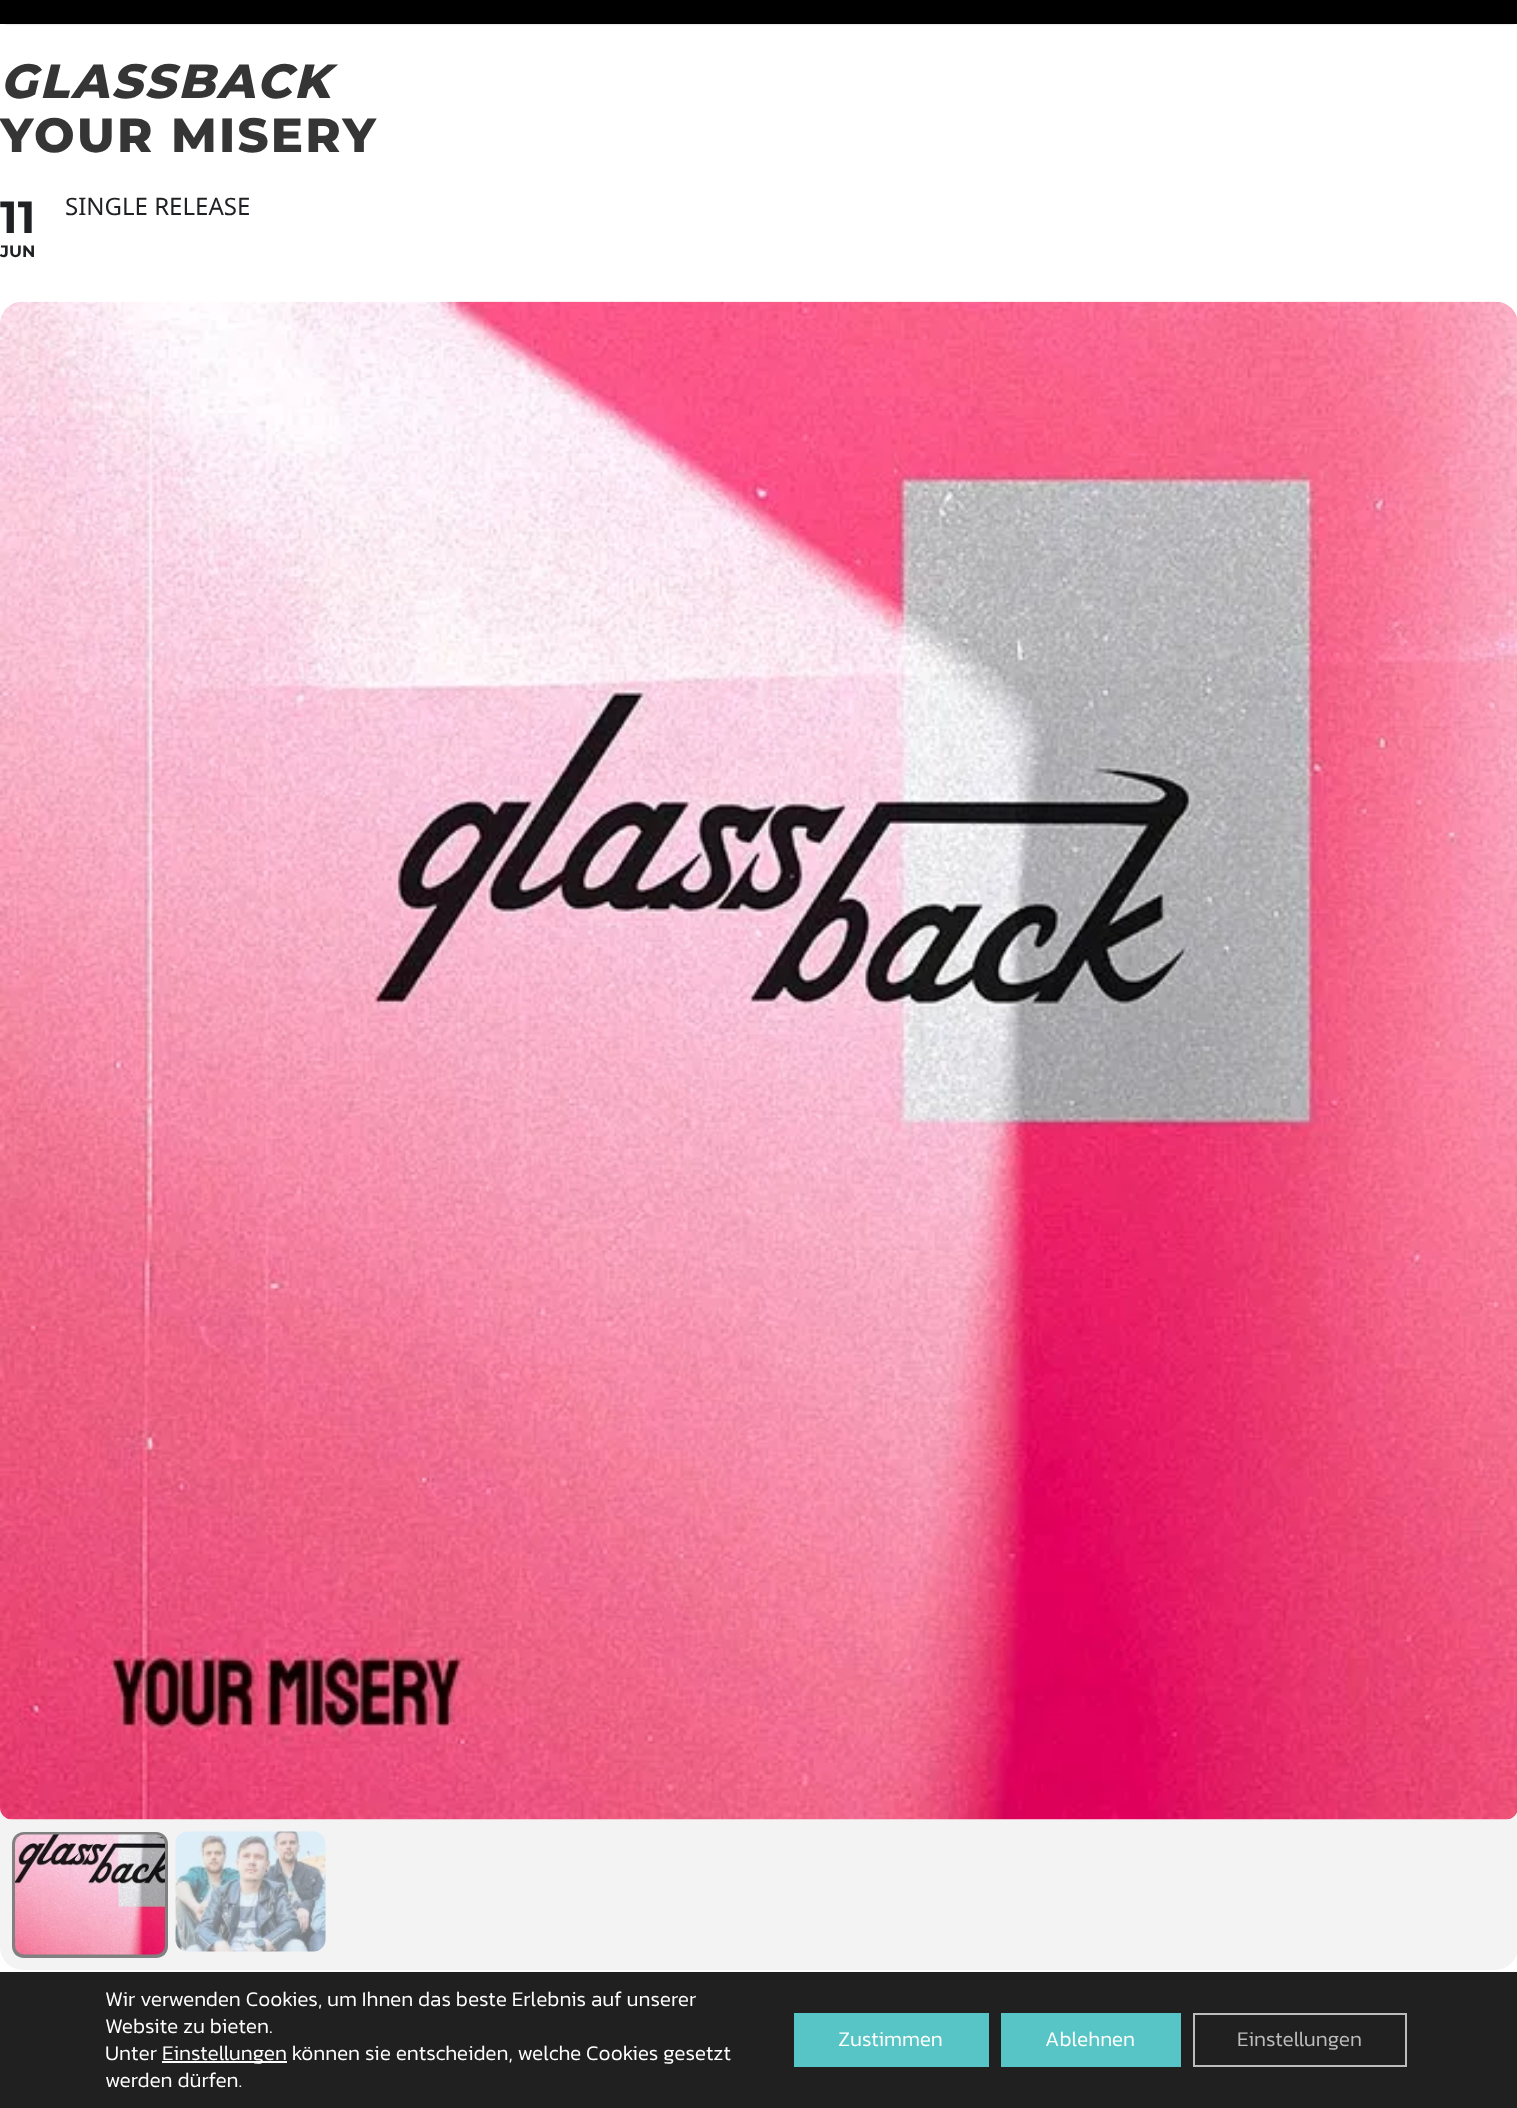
async function draw(canvas) {
	canvas.width = 1517;
	canvas.height = 2108;
	const c = canvas.getContext('2d');
	c.miterLimit = 4;
	c.fontKerning = 'normal';
	async function loadImage(src) {
		const img = new Image();
		img.src = src;
		await img.decode();
		return img;
	}

	c.fillStyle = '#fff';
	c.fillRect(0, 0, 1517, 2108);
	c.fillStyle = '#000';
	c.fillRect(0, 0, 1517, 24);
	c.save();
	c.beginPath();
	c.rect(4, 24, 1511, 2);
	c.clip();
	c.fillStyle = '#00000080';
	c.filter = 'blur(1.5px)';
	c.beginPath();
	c.rect(5, -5, 1509, 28);
	c.fill();
	c.filter = 'none';
	c.restore();
	c.letterSpacing = '2.25px';
	c.font = 'italic 800 48px Montserrat';
	c.fillStyle = '#353535';
	c.fillText('GLASSBACK', 0, 98);
	c.font = '800 48px Montserrat';
	c.fillText('YOUR MISERY', 0, 152);
	c.letterSpacing = '0px';
	c.font = 'bold 45px Montserrat';
	c.fillStyle = '#202124';
	c.fillText('11', 0, 233);
	c.font = 'bold 16.5px Montserrat';
	c.fillText('JUN', 0, 257);
	c.font = '24px Noto Sans';
	c.fillText('SINGLE RELEASE', 65, 215);
	c.fillStyle = '#f3f3f3';
	c.beginPath();
	c.roundRect(0, 302, 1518, 1668, 23);
	c.fill();
	c.drawImage(await loadImage('img1.png'), 0, 301, 1517, 1519);
	c.fillStyle = '#808080';
	c.beginPath();
	c.moveTo(24, 1832);
	c.lineTo(156, 1832);
	c.bezierCurveTo(163, 1832, 168, 1837, 168, 1844);
	c.lineTo(168, 1946);
	c.bezierCurveTo(168, 1953, 163, 1958, 156, 1958);
	c.lineTo(24, 1958);
	c.bezierCurveTo(17, 1958, 12, 1953, 12, 1946);
	c.lineTo(12, 1844);
	c.bezierCurveTo(12, 1837, 17, 1832, 24, 1832);
	c.closePath();
	c.fill();
	c.drawImage(await loadImage('img2.png'), 15, 1834, 150, 121);
	c.drawImage(await loadImage('img3.png'), 175, 1831, 151, 121);
	c.fillStyle = '#202020';
	c.fillRect(0, 1972, 1517, 136);
	c.font = '300 21px Kanit';
	c.fillStyle = '#fff';
	for (const [text, x, y] of [
		['Wir verwenden Cookies, um Ihnen das beste Erlebnis auf unserer', 105, 2006],
		['Website zu bieten.', 105, 2033],
		['Unter', 105, 2060],
	]) {
		c.fillText(text, x, y);
	}
	c.fillRect(162, 2061, 125, 2);
	c.fillText('Einstellungen können sie entscheiden, welche Cookies gesetzt', 162, 2060);
	c.fillText('werden dürfen.', 105, 2087);
	c.fillStyle = '#57c5c6';
	c.fillRect(794, 2013, 195, 54);
	c.fillStyle = '#fff';
	c.fillText('Zustimmen', 838, 2046);
	c.fillStyle = '#57c5c6';
	c.fillRect(1001, 2013, 180, 54);
	c.fillStyle = '#fff';
	c.fillText('Ablehnen', 1045, 2046);
	c.strokeStyle = '#bcbcbc';
	c.lineWidth = 2;
	c.strokeRect(1194, 2014, 212, 52);
	c.fillStyle = '#bcbcbc';
	c.fillText('Einstellungen', 1237, 2046);
}

draw(document.querySelector('canvas'));
